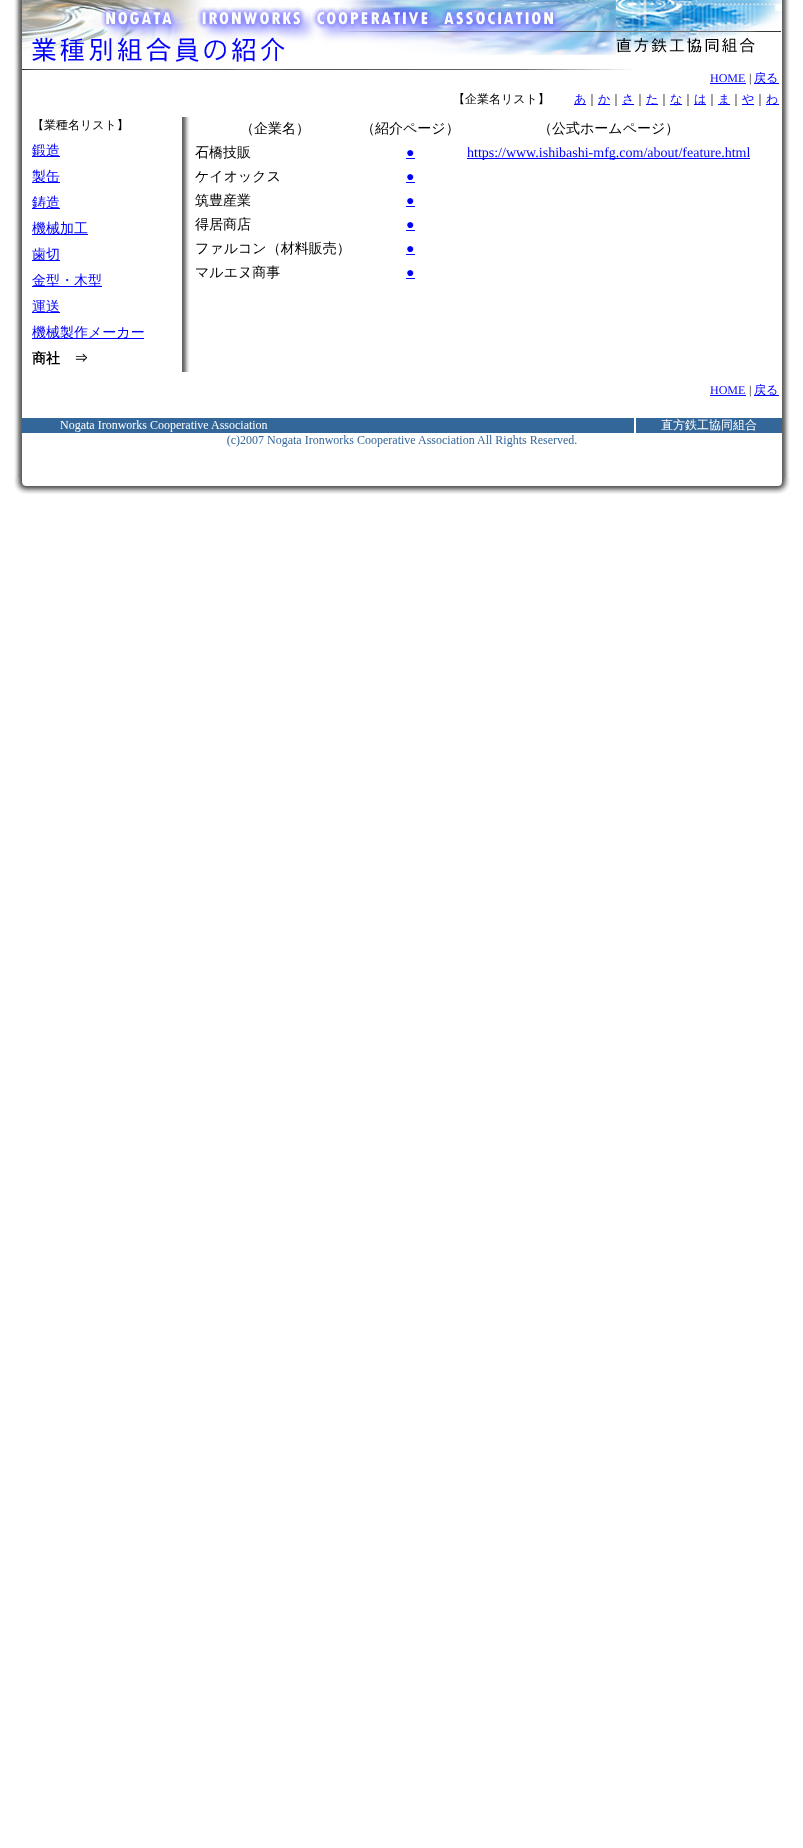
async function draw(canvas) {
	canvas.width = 803;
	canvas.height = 1848;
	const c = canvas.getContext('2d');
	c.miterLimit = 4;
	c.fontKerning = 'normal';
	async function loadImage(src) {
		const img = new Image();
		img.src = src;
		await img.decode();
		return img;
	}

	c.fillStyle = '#fff';
	c.fillRect(0, 0, 803, 1848);
	c.drawImage(await loadImage('img1.png'), 14, 0, 8, 478);
	c.drawImage(await loadImage('img2.png'), 22, 0, 760, 70);
	c.font = '12px Liberation Serif';
	c.fillStyle = '#00f';
	c.fillText('HOME', 710, 82);
	c.fillRect(710, 83, 36, 1);
	c.fillStyle = '#000';
	c.fillText('|', 749, 82);
	c.fillStyle = '#00f';
	c.fillRect(754, 83, 25, 1);
	c.font = '500 12px WenQuanYi Zen Hei';
	c.fillText('戻る', 754, 82);
	c.fillStyle = '#000';
	c.fillText('【企業名リスト】', 453, 103);
	c.fillStyle = '#00f';
	c.fillRect(574, 104, 12, 1);
	c.fillText('あ', 574, 103);
	c.fillStyle = '#000';
	c.fillText('｜', 586, 103);
	c.fillStyle = '#00f';
	c.fillRect(598, 104, 12, 1);
	c.fillText('か', 598, 103);
	c.fillStyle = '#000';
	c.fillText('｜', 610, 103);
	c.fillStyle = '#00f';
	c.fillRect(622, 104, 12, 1);
	c.fillText('さ', 622, 103);
	c.fillStyle = '#000';
	c.fillText('｜', 634, 103);
	c.fillStyle = '#00f';
	c.fillRect(646, 104, 12, 1);
	c.fillText('た', 646, 103);
	c.fillStyle = '#000';
	c.fillText('｜', 658, 103);
	c.fillStyle = '#00f';
	c.fillRect(670, 104, 12, 1);
	c.fillText('な', 670, 103);
	c.fillStyle = '#000';
	c.fillText('｜', 682, 103);
	c.fillStyle = '#00f';
	c.fillRect(694, 104, 12, 1);
	c.fillText('は', 694, 103);
	c.fillStyle = '#000';
	c.fillText('｜', 706, 103);
	c.fillStyle = '#00f';
	c.fillRect(718, 104, 12, 1);
	c.fillText('ま', 718, 103);
	c.fillStyle = '#000';
	c.fillText('｜', 730, 103);
	c.fillStyle = '#00f';
	c.fillRect(742, 104, 12, 1);
	c.fillText('や', 742, 103);
	c.fillStyle = '#000';
	c.fillText('｜', 754, 103);
	c.fillStyle = '#00f';
	c.fillRect(766, 104, 13, 1);
	c.fillText('わ', 766, 103);
	c.fillStyle = '#000';
	c.fillText('【業種名リスト】', 32, 129);
	c.fillStyle = '#00f';
	c.fillRect(32, 156, 28, 1);
	c.font = '500 14px WenQuanYi Zen Hei';
	c.fillText('鍛造', 32, 155);
	c.fillRect(32, 182, 28, 1);
	c.fillText('製缶', 32, 181);
	c.fillRect(32, 208, 28, 1);
	c.fillText('鋳造', 32, 207);
	c.fillRect(32, 234, 56, 1);
	c.fillText('機械加工', 32, 233);
	c.fillRect(32, 260, 28, 1);
	c.fillText('歯切', 32, 259);
	c.fillRect(32, 286, 70, 1);
	c.fillText('金型・木型', 32, 285);
	c.fillRect(32, 312, 28, 1);
	c.fillText('運送', 32, 311);
	c.fillRect(32, 338, 112, 1);
	c.fillText('機械製作メーカー', 32, 337);
	c.font = 'bold 14px WenQuanYi Zen Hei';
	c.fillStyle = '#000';
	c.fillText('商社　⇒', 32, 363);
	c.drawImage(await loadImage('img3.png'), 182, 117, 8, 255);
	c.font = '500 14px WenQuanYi Zen Hei';
	for (const [text, x, y] of [
		['（企業名）', 240, 133],
		['（紹介ページ）', 361, 133],
		['（公式ホームページ）', 538, 133],
		['石橋技販', 195, 157],
	]) {
		c.fillText(text, x, y);
	}
	c.font = '14px Liberation Serif';
	c.fillStyle = '#00f';
	c.fillText('●', 406, 157);
	c.fillRect(406, 158, 9, 1);
	c.fillRect(467, 158, 283, 1);
	c.fillText('https://www.ishibashi-mfg.com/about/feature.html', 467, 157);
	c.font = '500 14px WenQuanYi Zen Hei';
	c.fillStyle = '#000';
	c.fillText('ケイオックス', 195, 181);
	c.font = '14px Liberation Serif';
	c.fillStyle = '#00f';
	c.fillText('●', 406, 181);
	c.fillRect(406, 182, 9, 1);
	c.font = '500 14px WenQuanYi Zen Hei';
	c.fillStyle = '#000';
	c.fillText('筑豊産業', 195, 205);
	c.font = '14px Liberation Serif';
	c.fillStyle = '#00f';
	c.fillText('●', 406, 205);
	c.fillRect(406, 206, 9, 1);
	c.font = '500 14px WenQuanYi Zen Hei';
	c.fillStyle = '#000';
	c.fillText('得居商店', 195, 229);
	c.font = '14px Liberation Serif';
	c.fillStyle = '#00f';
	c.fillText('●', 406, 229);
	c.fillRect(406, 230, 9, 1);
	c.font = '500 14px WenQuanYi Zen Hei';
	c.fillStyle = '#000';
	c.fillText('ファルコン（材料販売）', 195, 253);
	c.font = '14px Liberation Serif';
	c.fillStyle = '#00f';
	c.fillText('●', 406, 253);
	c.fillRect(406, 254, 9, 1);
	c.font = '500 14px WenQuanYi Zen Hei';
	c.fillStyle = '#000';
	c.fillText('マルエヌ商事', 195, 277);
	c.font = '14px Liberation Serif';
	c.fillStyle = '#00f';
	c.fillText('●', 406, 277);
	c.fillRect(406, 278, 9, 1);
	c.font = '12px Liberation Serif';
	c.fillText('HOME', 710, 394);
	c.fillRect(710, 395, 36, 1);
	c.fillStyle = '#000';
	c.fillText('|', 749, 394);
	c.fillStyle = '#00f';
	c.fillRect(754, 395, 25, 1);
	c.font = '500 12px WenQuanYi Zen Hei';
	c.fillText('戻る', 754, 394);
	c.drawImage(await loadImage('img4.png'), 22, 418, 760, 29);
	c.drawImage(await loadImage('img5.png'), 782, 0, 8, 478);
	c.drawImage(await loadImage('img6.png'), 14, 478, 776, 16);
}

draw(document.querySelector('canvas'));
